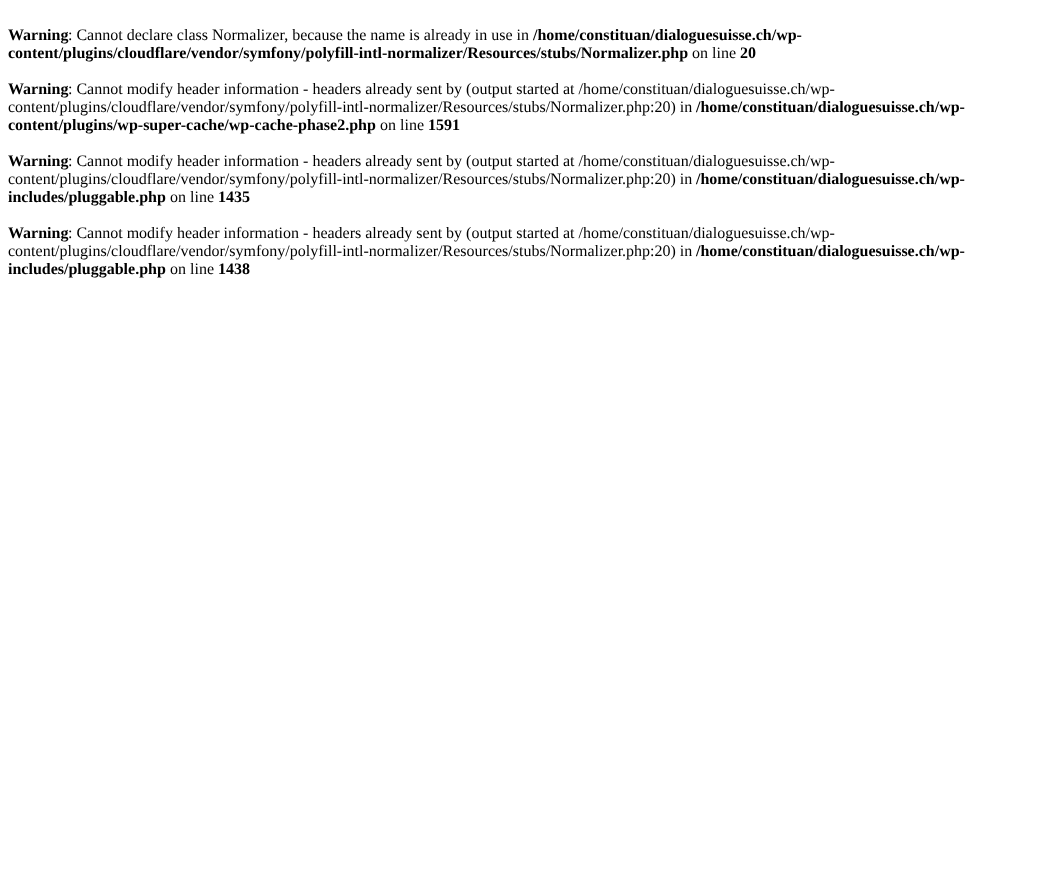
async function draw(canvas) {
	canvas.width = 1058;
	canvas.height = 876;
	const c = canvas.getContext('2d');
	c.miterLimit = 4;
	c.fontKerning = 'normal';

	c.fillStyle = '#fff';
	c.fillRect(0, 0, 1058, 876);
	c.font = 'bold 16px Liberation Serif';
	c.fillStyle = '#000';
	c.fillText('Warning', 8, 40);
	c.font = '16px Liberation Serif';
	c.fillText(': Cannot declare class Normalizer, because the name is already in use in', 68, 40);
	c.font = 'bold 16px Liberation Serif';
	c.fillText('/home/constituan/dialoguesuisse.ch/wp-', 533, 40);
	c.fillText('content/plugins/cloudflare/vendor/symfony/polyfill-intl-normalizer/Resources/stubs/Normalizer.php', 8, 58);
	c.font = '16px Liberation Serif';
	c.fillText('on line', 692, 58);
	c.font = 'bold 16px Liberation Serif';
	c.fillText('20', 740, 58);
	c.fillText('Warning', 8, 94);
	c.font = '16px Liberation Serif';
	c.fillText(': Cannot modify header information - headers already sent by (output started at /home/constituan/dialoguesuisse.ch/wp-', 68, 94);
	c.fillText('content/plugins/cloudflare/vendor/symfony/polyfill-intl-normalizer/Resources/stubs/Normalizer.php:20) in', 8, 112);
	c.font = 'bold 16px Liberation Serif';
	c.fillText('/home/constituan/dialoguesuisse.ch/wp-', 696, 112);
	c.fillText('content/plugins/wp-super-cache/wp-cache-phase2.php', 8, 130);
	c.font = '16px Liberation Serif';
	c.fillText('on line', 380, 130);
	c.font = 'bold 16px Liberation Serif';
	c.fillText('1591', 428, 130);
	c.fillText('Warning', 8, 166);
	c.font = '16px Liberation Serif';
	c.fillText(': Cannot modify header information - headers already sent by (output started at /home/constituan/dialoguesuisse.ch/wp-', 68, 166);
	c.fillText('content/plugins/cloudflare/vendor/symfony/polyfill-intl-normalizer/Resources/stubs/Normalizer.php:20) in', 8, 184);
	c.font = 'bold 16px Liberation Serif';
	c.fillText('/home/constituan/dialoguesuisse.ch/wp-', 696, 184);
	c.fillText('includes/pluggable.php', 8, 202);
	c.font = '16px Liberation Serif';
	c.fillText('on line', 170, 202);
	c.font = 'bold 16px Liberation Serif';
	c.fillText('1435', 218, 202);
	c.fillText('Warning', 8, 238);
	c.font = '16px Liberation Serif';
	c.fillText(': Cannot modify header information - headers already sent by (output started at /home/constituan/dialoguesuisse.ch/wp-', 68, 238);
	c.fillText('content/plugins/cloudflare/vendor/symfony/polyfill-intl-normalizer/Resources/stubs/Normalizer.php:20) in', 8, 256);
	c.font = 'bold 16px Liberation Serif';
	c.fillText('/home/constituan/dialoguesuisse.ch/wp-', 696, 256);
	c.fillText('includes/pluggable.php', 8, 274);
	c.font = '16px Liberation Serif';
	c.fillText('on line', 170, 274);
	c.font = 'bold 16px Liberation Serif';
	c.fillText('1438', 218, 274);
}

draw(document.querySelector('canvas'));
